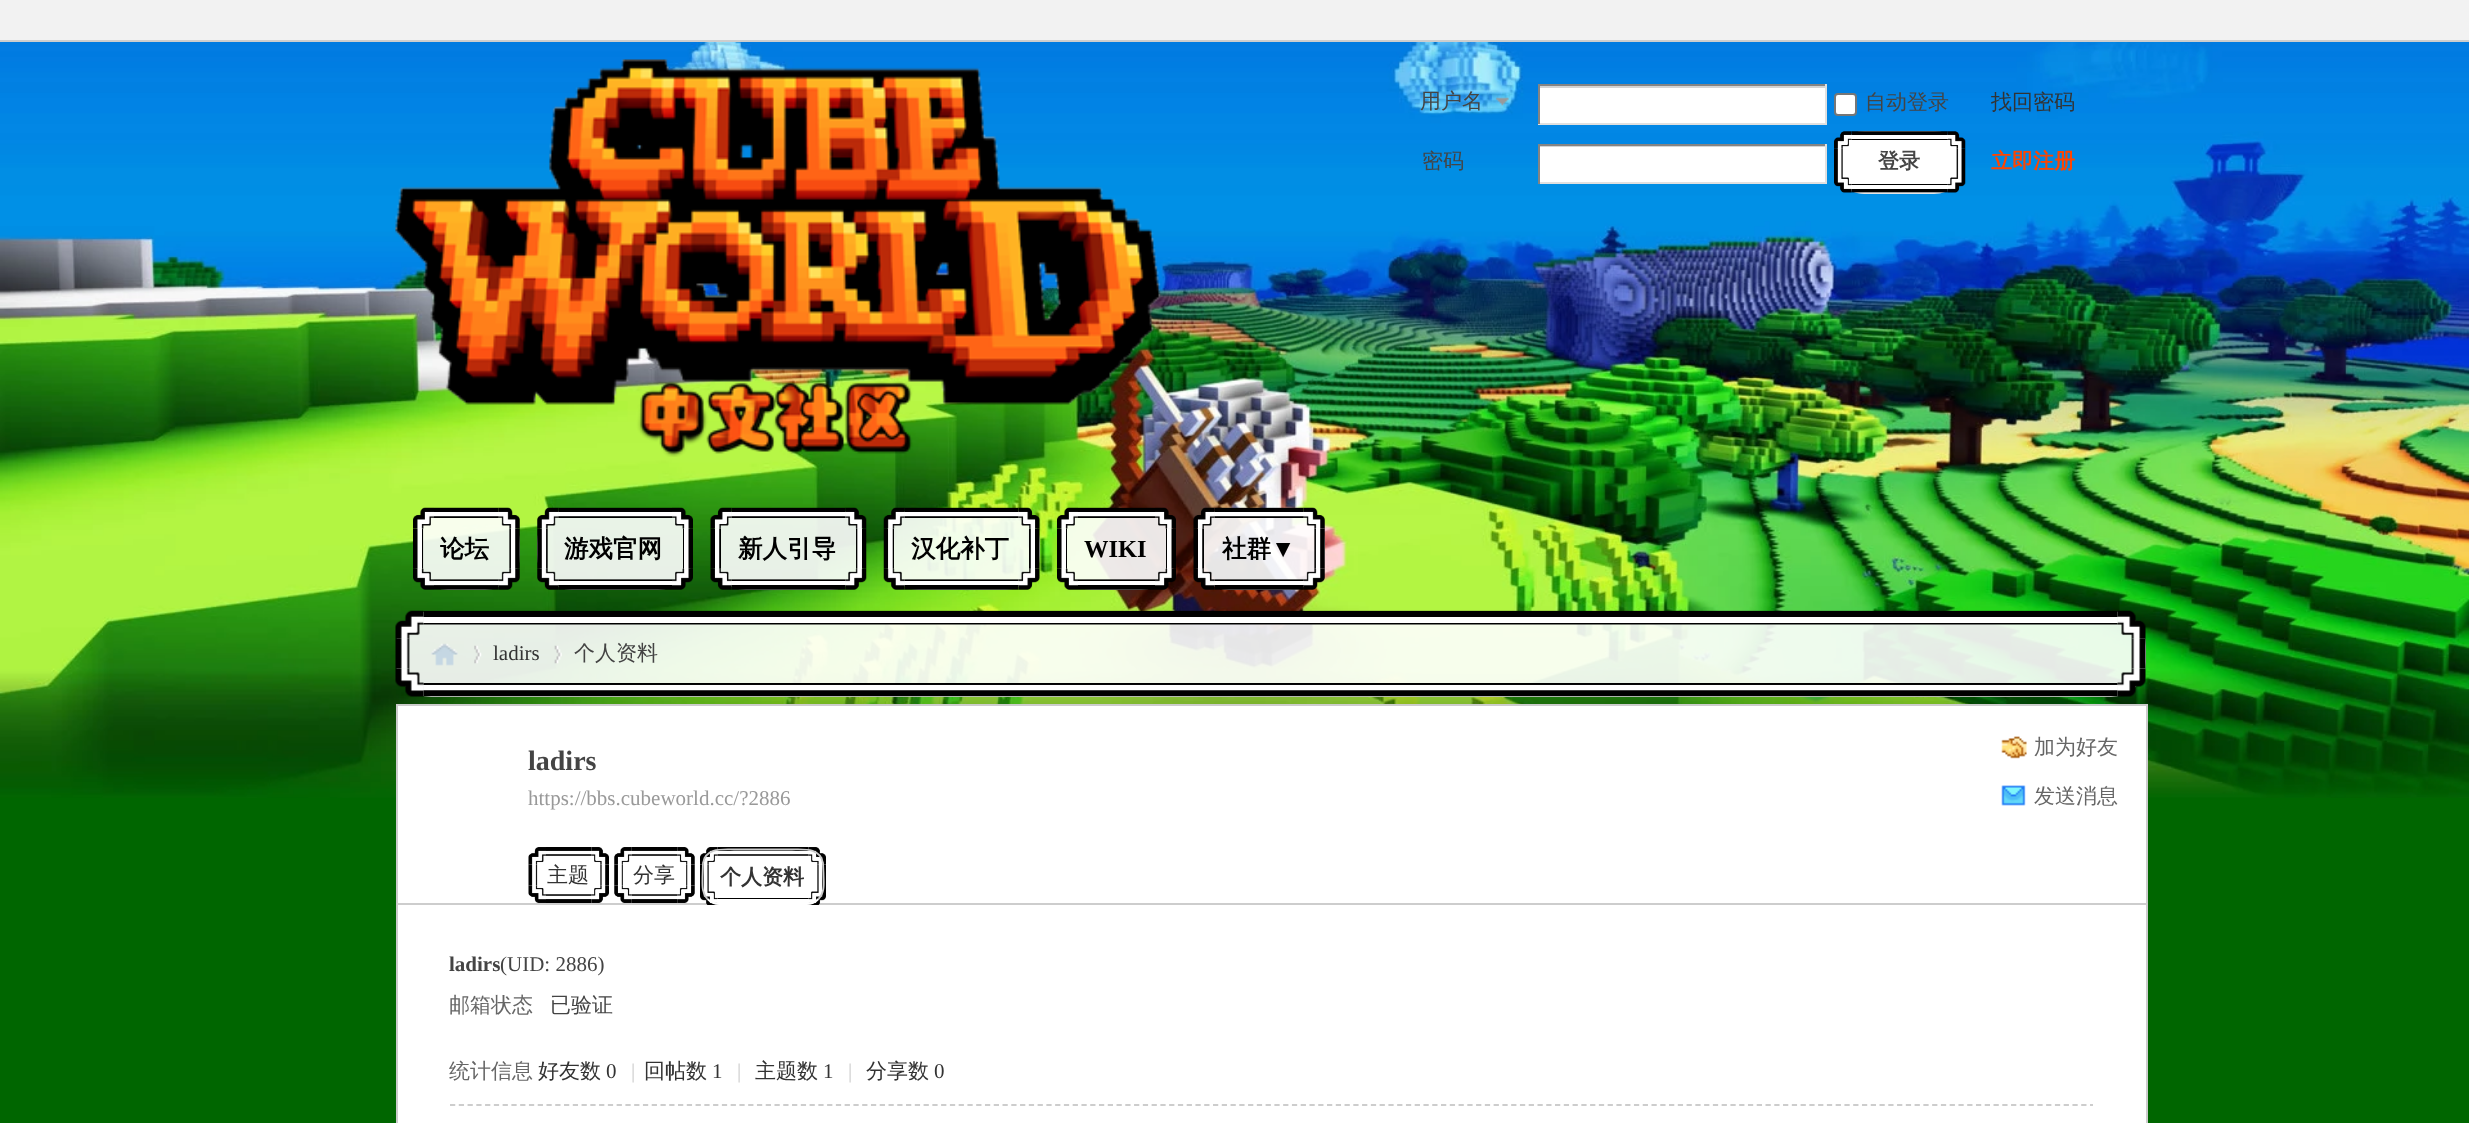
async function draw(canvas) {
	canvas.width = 2469;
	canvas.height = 1123;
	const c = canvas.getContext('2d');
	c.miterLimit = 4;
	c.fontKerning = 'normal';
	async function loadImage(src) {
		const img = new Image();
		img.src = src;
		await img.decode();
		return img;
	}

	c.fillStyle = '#060';
	c.fillRect(0, 0, 2469, 1123);
	c.drawImage(await loadImage('img1.png'), 0, 42, 2469, 756);
	c.fillStyle = '#f2f2f2';
	c.fillRect(0, 0, 2469, 40);
	c.fillStyle = '#cdcdcd';
	c.fillRect(0, 40, 2469, 2);
	c.drawImage(await loadImage('img2.png'), 395, 59, 766, 398);
	c.drawImage(await loadImage('img3.png'), 1496, 97, 13, 9);
	c.font = '500 21px WenQuanYi Zen Hei';
	c.fillStyle = '#444';
	c.fillText('用户名', 1420, 108);
	for (const [x, y, w, h, color] of [
		[1540, 88, 285, 35, '#fff'],
		[1538, 86, 289, 2, '#d4d4d4'],
		[1538, 84, 289, 2, '#848484'],
		[1825, 84, 2, 40, '#e0e0e0'],
		[1538, 123, 289, 2, '#e0e0e0'],
		[1538, 84, 2, 40, '#848484'],
	]) {
		c.fillStyle = color;
		c.fillRect(x, y, w, h);
	}
	c.fillStyle = '#fff';
	c.beginPath();
	c.roundRect(1835, 94, 21, 21, 3);
	c.fill();
	c.strokeStyle = '#767676';
	c.lineWidth = 2;
	c.stroke();
	c.fillStyle = '#444';
	c.fillText('自动登录', 1865, 109);
	c.fillStyle = '#333';
	c.fillText('找回密码', 1991, 109);
	c.fillStyle = '#444';
	c.fillText('密码', 1422, 168);
	c.fillStyle = '#fff';
	c.fillRect(1540, 147, 285, 35);
	c.drawImage(await loadImage('img4.png'), 1540, 146, 285, 1);
	for (const [x, y, w, h, color] of [
		[1538, 144, 289, 2, '#848484'],
		[1825, 144, 2, 40, '#e0e0e0'],
		[1538, 182, 289, 2, '#e0e0e0'],
		[1538, 144, 2, 40, '#848484'],
	]) {
		c.fillStyle = color;
		c.fillRect(x, y, w, h);
	}
	c.fillStyle = '#e5e5e5';
	c.beginPath();
	c.moveTo(1834, 163);
	c.lineTo(1834, 164);
	c.bezierCurveTo(1834, 180, 1848, 194, 1864, 194);
	c.lineTo(1934, 194);
	c.bezierCurveTo(1950, 194, 1963, 182, 1965, 167);
	c.bezierCurveTo(1962, 182, 1950, 192, 1935, 192);
	c.lineTo(1865, 192);
	c.bezierCurveTo(1848, 192, 1834, 179, 1834, 163);
	c.closePath();
	c.fill();
	c.fillStyle = '#fff';
	c.beginPath();
	c.roundRect(1834, 131, 131, 62, 31);
	c.fill();
	c.drawImage(await loadImage('img5.png'), 1834, 131, 132, 62);
	c.font = 'bold 21px WenQuanYi Zen Hei';
	c.fillStyle = '#444';
	c.fillText('登录', 1878, 168);
	c.fillStyle = '#ff4500';
	c.fillText('立即注册', 1991, 168);
	c.fillStyle = '#ffffffe6';
	c.beginPath();
	c.roundRect(413, 508, 107, 82, 35);
	c.fill();
	c.drawImage(await loadImage('img6.png'), 413, 507, 107, 83);
	c.font = 'bold 24.5px WenQuanYi Zen Hei';
	c.fillStyle = '#000';
	c.fillText('论坛', 440, 557);
	c.fillStyle = '#ffffffe6';
	c.beginPath();
	c.roundRect(537, 508, 156, 82, 35);
	c.fill();
	c.drawImage(await loadImage('img7.png'), 537, 507, 156, 83);
	c.fillStyle = '#000';
	c.fillText('游戏官网', 564, 557);
	c.fillStyle = '#ffffffe6';
	c.beginPath();
	c.roundRect(711, 508, 155, 82, 35);
	c.fill();
	c.drawImage(await loadImage('img8.png'), 710, 507, 157, 83);
	c.fillStyle = '#000';
	c.fillText('新人引导', 738, 557);
	c.fillStyle = '#ffffffe6';
	c.beginPath();
	c.roundRect(884, 508, 156, 82, 35);
	c.fill();
	c.drawImage(await loadImage('img9.png'), 883, 507, 157, 83);
	c.fillStyle = '#000';
	c.fillText('汉化补丁', 911, 557);
	c.fillStyle = '#ffffffe6';
	c.beginPath();
	c.roundRect(1057, 508, 119, 82, 35);
	c.fill();
	c.drawImage(await loadImage('img10.png'), 1057, 507, 119, 83);
	c.font = 'bold 24.5px Liberation Serif';
	c.fillStyle = '#000';
	c.fillText('WIKI', 1084, 557);
	c.fillStyle = '#ffffffe6';
	c.beginPath();
	c.roundRect(1194, 508, 131, 82, 35);
	c.fill();
	c.drawImage(await loadImage('img11.png'), 1193, 507, 132, 83);
	c.font = 'bold 24.5px WenQuanYi Zen Hei';
	c.fillStyle = '#000';
	c.fillText('社群', 1222, 557);
	c.font = 'bold 24.5px Liberation Serif';
	c.fillText('▼', 1271, 557);
	c.fillStyle = '#ffffffe6';
	c.beginPath();
	c.roundRect(396, 611, 1750, 86, 35);
	c.fill();
	c.drawImage(await loadImage('img12.png'), 395, 610, 1751, 87);
	c.drawImage(await loadImage('img13.png'), 431, 643, 27, 23);
	c.drawImage(await loadImage('img14.png'), 474, 645, 8, 19);
	c.font = '21px Liberation Serif';
	c.fillStyle = '#333';
	c.fillText('ladirs', 493, 660);
	c.drawImage(await loadImage('img15.png'), 554, 645, 8, 19);
	c.font = '500 21px WenQuanYi Zen Hei';
	c.fillStyle = '#444';
	c.fillText('个人资料', 574, 660);
	for (const [x, y, w, h, color] of [
		[398, 706, 1748, 197, '#fff'],
		[396, 704, 1751, 2, '#ccc'],
		[2146, 704, 2, 419, '#ccc'],
		[396, 704, 2, 419, '#ccc'],
	]) {
		c.fillStyle = color;
		c.fillRect(x, y, w, h);
	}
	c.font = 'bold 28px Liberation Serif';
	c.fillStyle = '#444';
	c.fillText('ladirs', 528, 770);
	c.font = '21px Liberation Serif';
	c.fillStyle = '#999';
	c.fillText('https://bbs.cubeworld.cc/?2886', 528, 805);
	c.drawImage(await loadImage('img16.png'), 2001, 736, 26, 23);
	c.font = '500 21px WenQuanYi Zen Hei';
	c.fillStyle = '#666';
	c.fillText('加为好友', 2034, 754);
	c.drawImage(await loadImage('img17.png'), 2001, 785, 25, 21);
	c.fillText('发送消息', 2034, 803);
	c.fillStyle = '#cdcdcd';
	c.fillRect(397, 903, 1749, 2);
	c.drawImage(await loadImage('img18.png'), 528, 847, 81, 56);
	c.fillStyle = '#333';
	c.fillText('主题', 547, 882);
	c.drawImage(await loadImage('img19.png'), 614, 847, 81, 56);
	c.fillText('分享', 633, 882);
	c.drawImage(await loadImage('img20.png'), 700, 847, 126, 58);
	c.beginPath();
	c.moveTo(818.5, 899);
	c.bezierCurveTo(815.5, 902, 811, 904, 807, 904);
	c.lineTo(719, 904);
	c.bezierCurveTo(715, 904, 710.5, 902, 707.5, 899);
	c.strokeStyle = '#fff';
	c.lineWidth = 1.8;
	c.stroke();
	c.beginPath();
	c.moveTo(707.5, 899);
	c.bezierCurveTo(701.5, 893, 702.5, 884.5, 702.5, 877);
	c.lineTo(703, 863);
	c.bezierCurveTo(706, 847.5, 722, 849.5, 734, 849.5);
	c.lineTo(792, 849.5);
	c.bezierCurveTo(804, 849.5, 820, 847.5, 823, 863);
	c.lineTo(823.5, 873);
	c.bezierCurveTo(823.5, 882, 825.5, 892, 818.5, 899);
	c.strokeStyle = '#ccc';
	c.stroke();
	c.font = 'bold 21px WenQuanYi Zen Hei';
	c.fillText('个人资料', 720, 884);
	c.fillStyle = '#fff';
	c.fillRect(398, 905, 1748, 218);
	c.font = 'bold 21px Liberation Serif';
	c.fillStyle = '#444';
	c.fillText('ladirs', 449, 971);
	c.font = '21px Liberation Serif';
	c.fillText('(UID: 2886)', 500, 971);
	c.font = '500 21px WenQuanYi Zen Hei';
	c.fillStyle = '#666';
	c.fillText('邮箱状态', 449, 1012);
	c.fillStyle = '#444';
	c.fillText('已验证', 550, 1012);
	c.beginPath();
	c.moveTo(450, 1105);
	c.lineTo(2093, 1105);
	c.strokeStyle = '#cdcdcd';
	c.setLineDash([5.25, 3.52]);
	c.stroke();
	c.fillStyle = '#666';
	c.fillText('统计信息', 449, 1078);
	c.fillStyle = '#333';
	c.fillText('好友数', 538, 1078);
	c.font = '21px Liberation Serif';
	c.fillText('0', 606, 1078);
	c.fillStyle = '#ccc';
	c.fillText('|', 631, 1078);
	c.font = '500 21px WenQuanYi Zen Hei';
	c.fillStyle = '#333';
	c.fillText('回帖数', 644, 1078);
	c.font = '21px Liberation Serif';
	c.fillText('1', 712, 1078);
	c.fillStyle = '#ccc';
	c.fillText('|', 737, 1078);
	c.font = '500 21px WenQuanYi Zen Hei';
	c.fillStyle = '#333';
	c.fillText('主题数', 755, 1078);
	c.font = '21px Liberation Serif';
	c.fillText('1', 823, 1078);
	c.fillStyle = '#ccc';
	c.fillText('|', 848, 1078);
	c.font = '500 21px WenQuanYi Zen Hei';
	c.fillStyle = '#333';
	c.fillText('分享数', 866, 1078);
	c.font = '21px Liberation Serif';
	c.fillText('0', 934, 1078);
}

draw(document.querySelector('canvas'));
